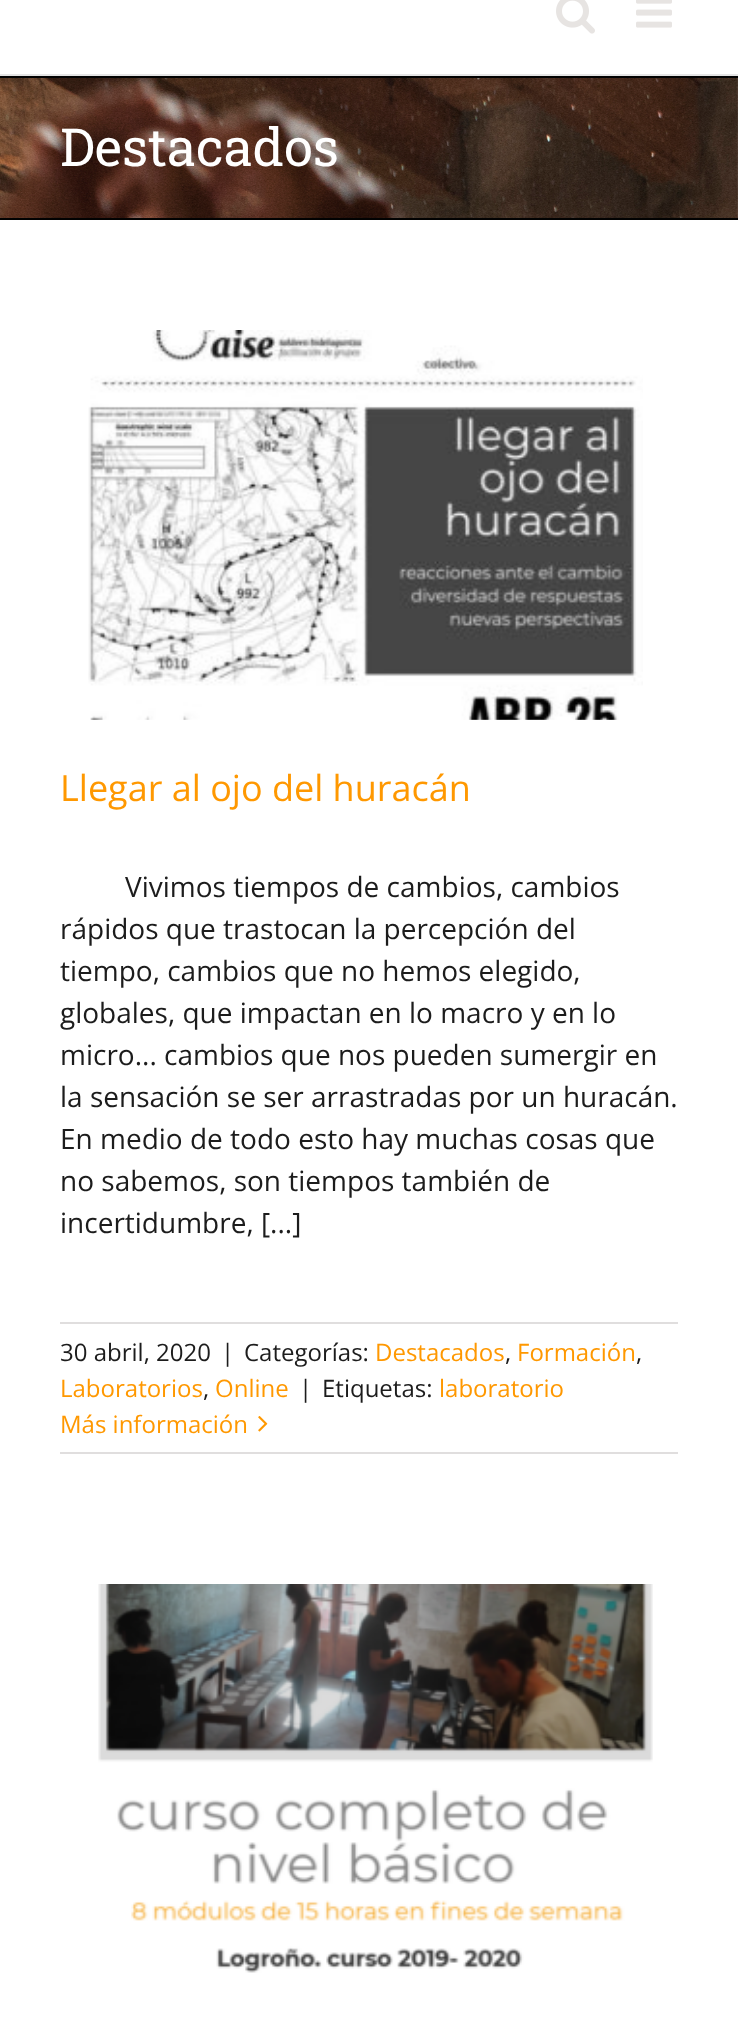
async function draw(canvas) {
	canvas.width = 738;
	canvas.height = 2022;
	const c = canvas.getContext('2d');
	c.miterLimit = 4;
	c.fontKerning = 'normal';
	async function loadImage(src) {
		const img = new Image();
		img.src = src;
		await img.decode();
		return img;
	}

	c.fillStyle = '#fff';
	c.fillRect(0, 0, 738, 2022);
	c.fillStyle = '#e5e5e5';
	c.fillRect(0, 74, 738, 2);
	c.drawImage(await loadImage('img1.png'), 556, 0, 39, 34);
	c.drawImage(await loadImage('img2.png'), 636, 0, 36, 28);
	c.drawImage(await loadImage('img3.png'), 0, 78, 738, 140);
	c.fillStyle = '#020202';
	c.fillRect(0, 76, 738, 2);
	c.fillRect(0, 218, 738, 2);
	c.font = '52.5px Roboto Slab';
	c.fillStyle = '#fff';
	c.fillText('Destacados', 60, 166);
	c.drawImage(await loadImage('img4.png'), 88, 330, 555, 390);
	c.font = '36px Open Sans';
	c.fillStyle = '#ff9800';
	c.fillText('Llegar al ojo del huracán', 60, 801);
	c.font = '28px Open Sans';
	c.fillStyle = '#1c1c1c';
	for (const [text, x, y] of [
		['Vivimos tiempos de cambios, cambios', 125, 897],
		['rápidos que trastocan la percepción del', 60, 939],
		['tiempo, cambios que no hemos elegido,', 60, 981],
		['globales, que impactan en lo macro y en lo', 60, 1023],
		['micro... cambios que nos pueden sumergir en', 60, 1065],
		['la sensación se ser arrastradas por un huracán.', 60, 1107],
		['En medio de todo esto hay muchas cosas que', 60, 1149],
		['no sabemos, son tiempos también de', 60, 1191],
		['incertidumbre, [...]', 60, 1233],
	]) {
		c.fillText(text, x, y);
	}
	c.fillStyle = '#e0dede';
	c.fillRect(60, 1322, 618, 2);
	c.fillRect(60, 1452, 618, 2);
	c.font = '24px Open Sans';
	c.fillStyle = '#1c1c1c';
	for (const [text, x, y] of [
		['30 abril, 2020', 60, 1361],
		['|', 221, 1361],
		['Categorías:', 244, 1361],
	]) {
		c.fillText(text, x, y);
	}
	c.fillStyle = '#ff9800';
	c.fillText('Destacados', 375, 1361);
	c.fillStyle = '#1c1c1c';
	c.fillText(',', 505, 1361);
	c.fillStyle = '#ff9800';
	c.fillText('Formación', 517, 1361);
	c.fillStyle = '#1c1c1c';
	c.fillText(',', 636, 1361);
	c.fillStyle = '#ff9800';
	c.fillText('Laboratorios', 60, 1397);
	c.fillStyle = '#1c1c1c';
	c.fillText(',', 203, 1397);
	c.fillStyle = '#ff9800';
	c.fillText('Online', 215, 1397);
	c.fillStyle = '#1c1c1c';
	c.fillText('|', 299, 1397);
	c.fillText('Etiquetas:', 322, 1397);
	c.fillStyle = '#ff9800';
	c.fillText('laboratorio', 439, 1397);
	c.fillText('Más información', 60, 1433);
	c.drawImage(await loadImage('img5.png'), 258, 1416, 10, 16);
	c.drawImage(await loadImage('img6.png'), 98, 1584, 555, 389);
}

draw(document.querySelector('canvas'));
